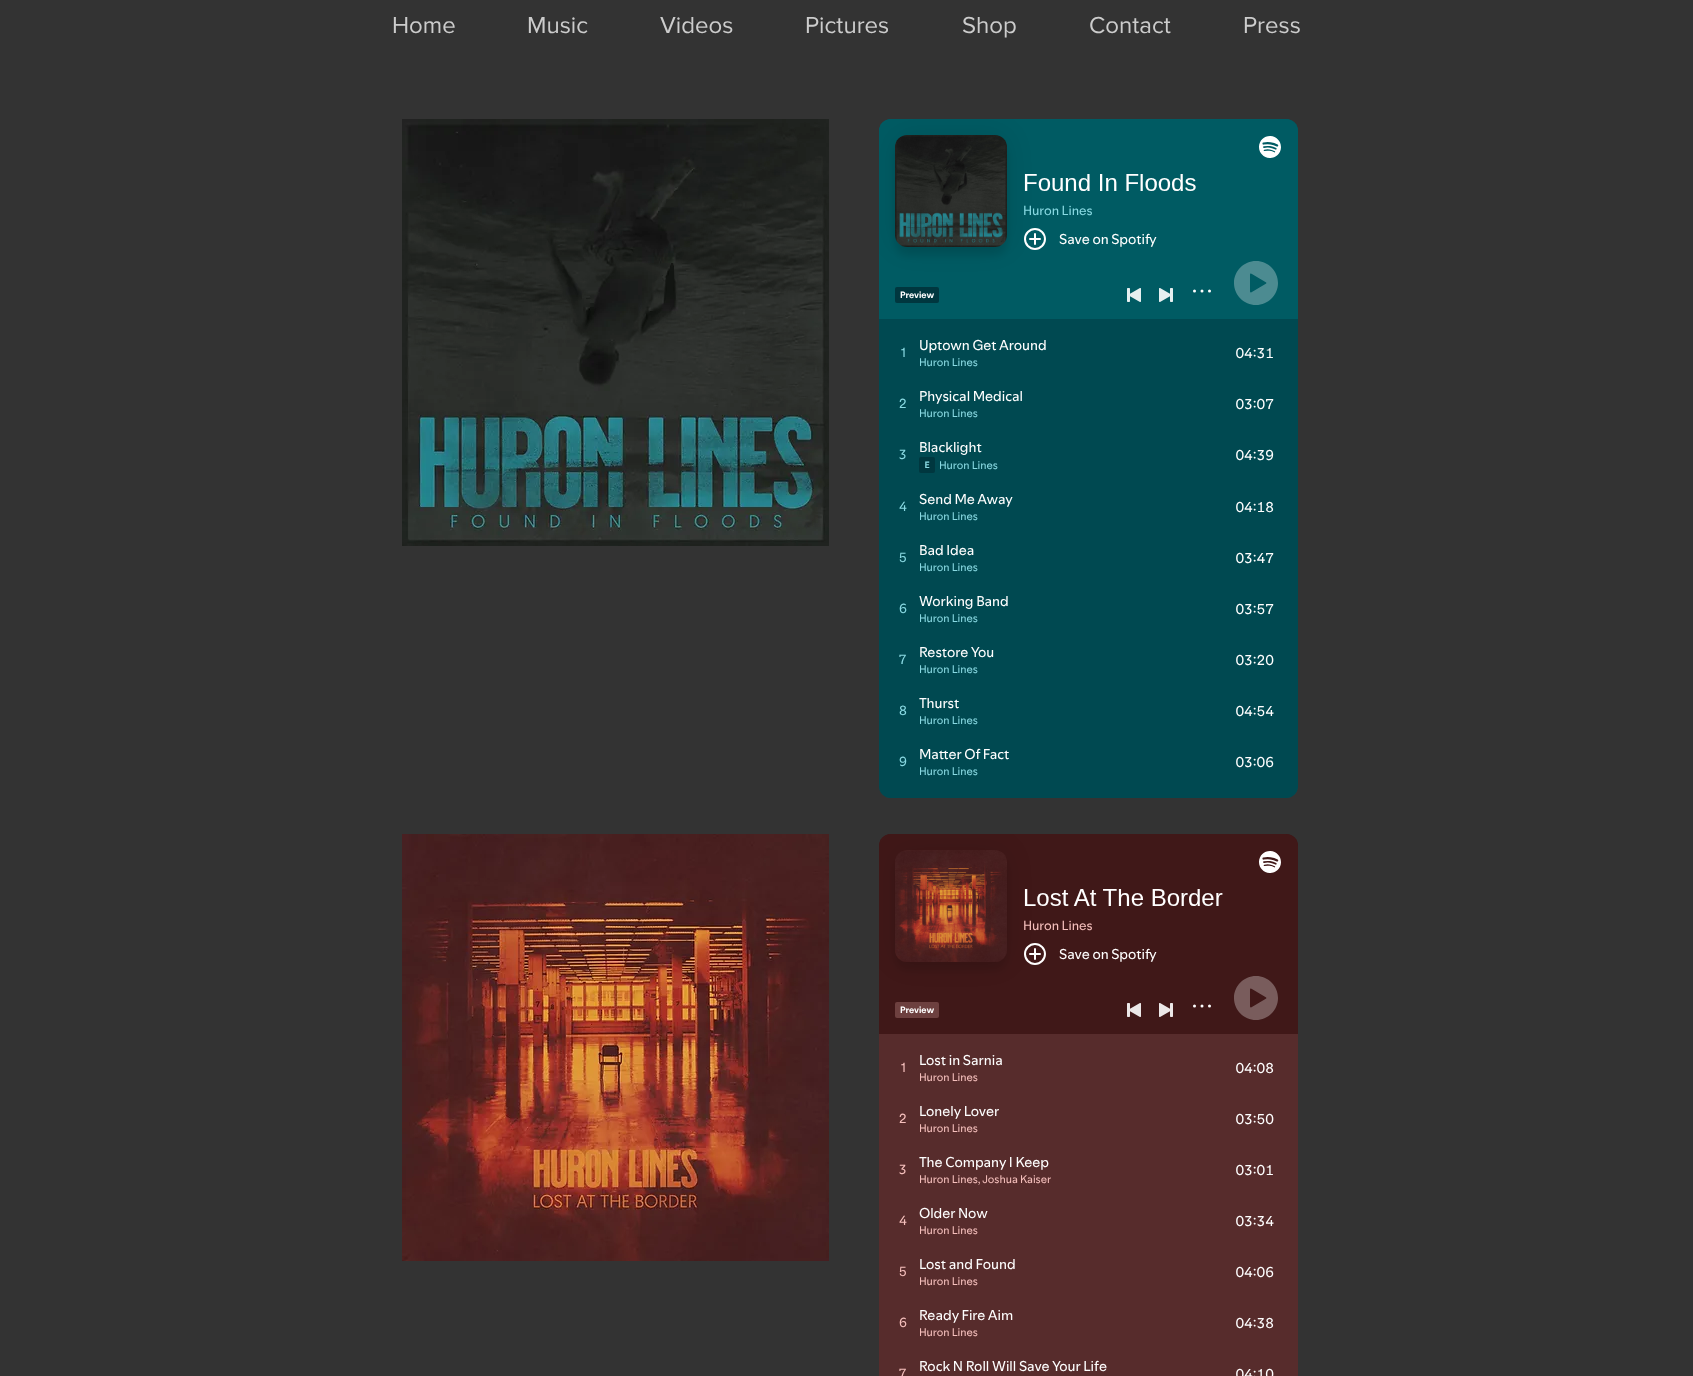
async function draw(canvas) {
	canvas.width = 1693;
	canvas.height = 1376;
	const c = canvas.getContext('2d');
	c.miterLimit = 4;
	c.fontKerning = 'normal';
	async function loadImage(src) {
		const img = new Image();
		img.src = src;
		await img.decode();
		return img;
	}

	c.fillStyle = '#333';
	c.fillRect(0, 0, 1693, 1376);
	c.font = '24px "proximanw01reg"';
	c.fillStyle = '#ccc';
	for (const [text, x, y] of [
		['Home', 392, 33],
		['Music', 527, 33],
		['Videos', 660, 33],
		['Pictures', 805, 33],
		['Shop', 962, 33],
		['Contact', 1089, 33],
		['Press', 1243, 33],
	]) {
		c.fillText(text, x, y);
	}
	c.drawImage(await loadImage('img1.png'), 402, 119, 427, 427);
	c.drawImage(await loadImage('img2.png'), 879, 119, 419, 679);
	c.drawImage(await loadImage('img3.png'), 402, 834, 427, 427);
	c.drawImage(await loadImage('img4.png'), 879, 834, 419, 542);
}

draw(document.querySelector('canvas'));
